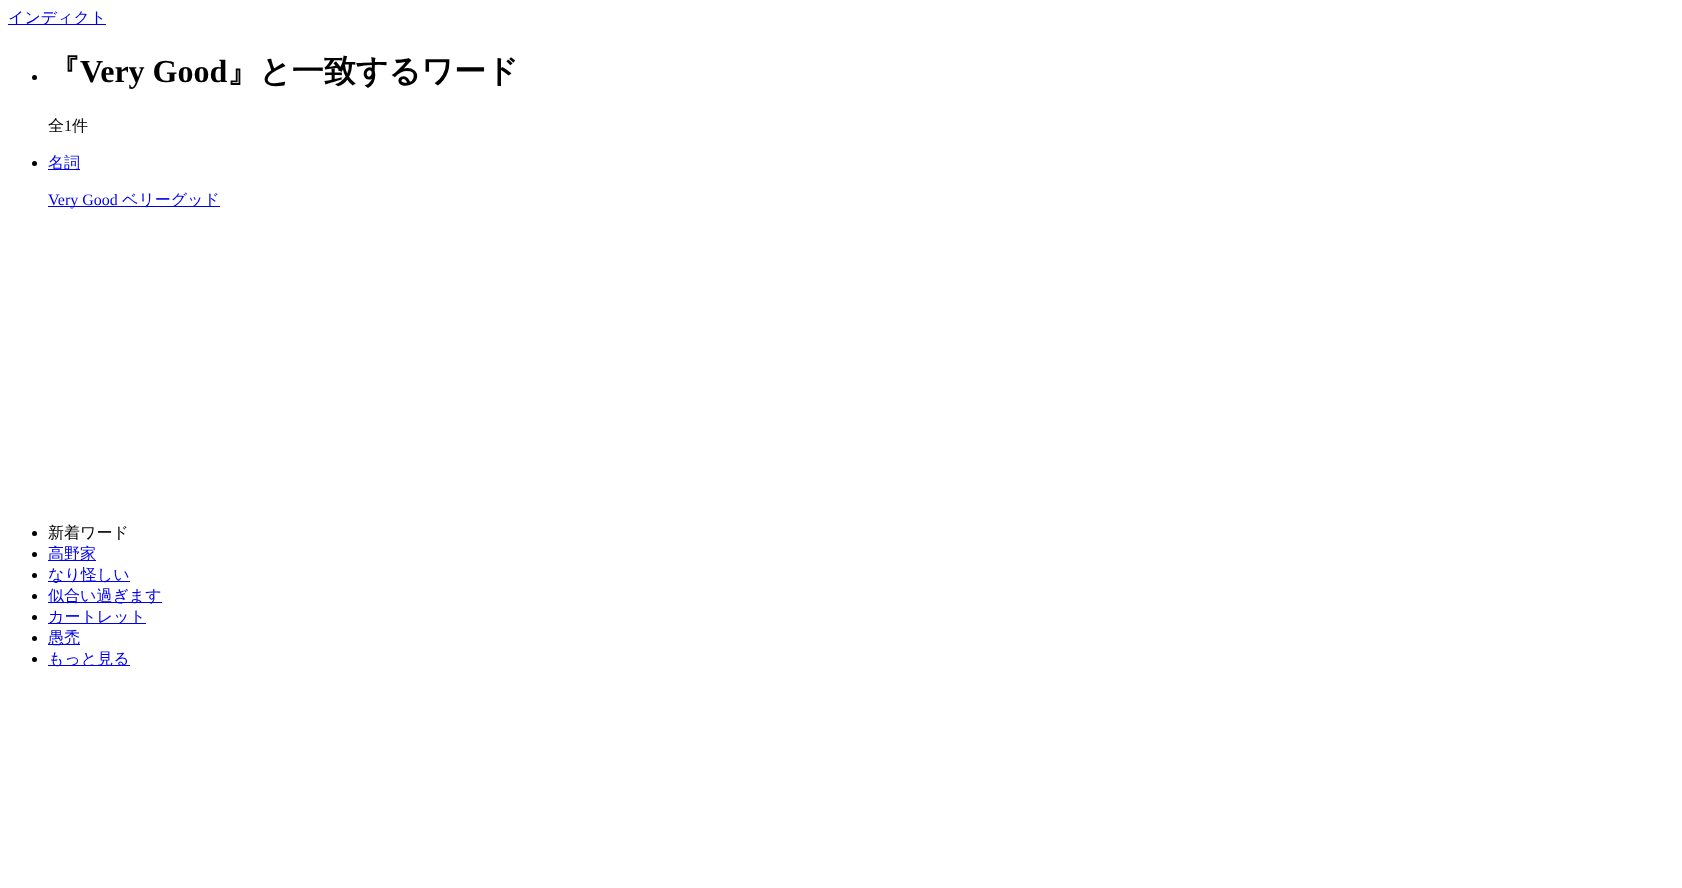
async function draw(canvas) {
	canvas.width = 1682;
	canvas.height = 888;
	const c = canvas.getContext('2d');
	c.miterLimit = 4;
	c.fontKerning = 'normal';

	c.fillStyle = '#fff';
	c.fillRect(0, 0, 1682, 888);
	c.fillStyle = '#00e';
	c.fillRect(8, 24, 98, 1);
	c.font = '500 16px WenQuanYi Zen Hei';
	c.fillText('インディクト', 8, 23);
	c.fillStyle = '#000';
	c.beginPath();
	c.arc(34.5, 77.5, 2.5, 0, 2 * Math.PI);
	c.fill();
	c.font = 'bold 32px WenQuanYi Zen Hei';
	c.fillText('『', 48, 82);
	c.font = 'bold 32px Liberation Serif';
	c.fillText('Very Good', 80, 82);
	c.font = 'bold 32px WenQuanYi Zen Hei';
	c.fillText('』と一致するワード', 227, 82);
	c.font = '500 16px WenQuanYi Zen Hei';
	c.fillText('全', 48, 131);
	c.font = '16px Liberation Serif';
	c.fillText('1', 64, 131);
	c.font = '500 16px WenQuanYi Zen Hei';
	c.fillText('件', 72, 131);
	c.beginPath();
	c.arc(34.5, 163.5, 2.5, 0, 2 * Math.PI);
	c.fill();
	c.fillStyle = '#00e';
	c.fillRect(48, 169, 32, 1);
	c.fillText('名詞', 48, 168);
	c.fillRect(48, 206, 172, 1);
	c.font = '16px Liberation Serif';
	c.fillText('Very Good', 48, 205);
	c.font = '500 16px WenQuanYi Zen Hei';
	c.fillText('ベリーグッド', 122, 205);
	c.fillStyle = '#000';
	c.beginPath();
	c.arc(34.5, 533.5, 2.5, 0, 2 * Math.PI);
	c.fill();
	c.fillText('新着ワード', 48, 538);
	c.beginPath();
	c.arc(34.5, 554.5, 2.5, 0, 2 * Math.PI);
	c.fill();
	c.fillStyle = '#00e';
	c.fillRect(48, 560, 48, 1);
	c.fillText('高野家', 48, 559);
	c.fillStyle = '#000';
	c.beginPath();
	c.arc(34.5, 575.5, 2.5, 0, 2 * Math.PI);
	c.fill();
	c.fillStyle = '#00e';
	c.fillRect(48, 581, 82, 1);
	c.fillText('なり怪しい', 48, 580);
	c.fillStyle = '#000';
	c.beginPath();
	c.arc(34.5, 596.5, 2.5, 0, 2 * Math.PI);
	c.fill();
	c.fillStyle = '#00e';
	c.fillRect(48, 602, 114, 1);
	c.fillText('似合い過ぎます', 48, 601);
	c.fillStyle = '#000';
	c.beginPath();
	c.arc(34.5, 617.5, 2.5, 0, 2 * Math.PI);
	c.fill();
	c.fillStyle = '#00e';
	c.fillRect(48, 623, 98, 1);
	c.fillText('カートレット', 48, 622);
	c.fillStyle = '#000';
	c.beginPath();
	c.arc(34.5, 638.5, 2.5, 0, 2 * Math.PI);
	c.fill();
	c.fillStyle = '#00e';
	c.fillRect(48, 644, 32, 1);
	c.fillText('愚禿', 48, 643);
	c.fillStyle = '#000';
	c.beginPath();
	c.arc(34.5, 659.5, 2.5, 0, 2 * Math.PI);
	c.fill();
	c.fillStyle = '#00e';
	c.fillRect(48, 665, 82, 1);
	c.fillText('もっと見る', 48, 664);
}

draw(document.querySelector('canvas'));
